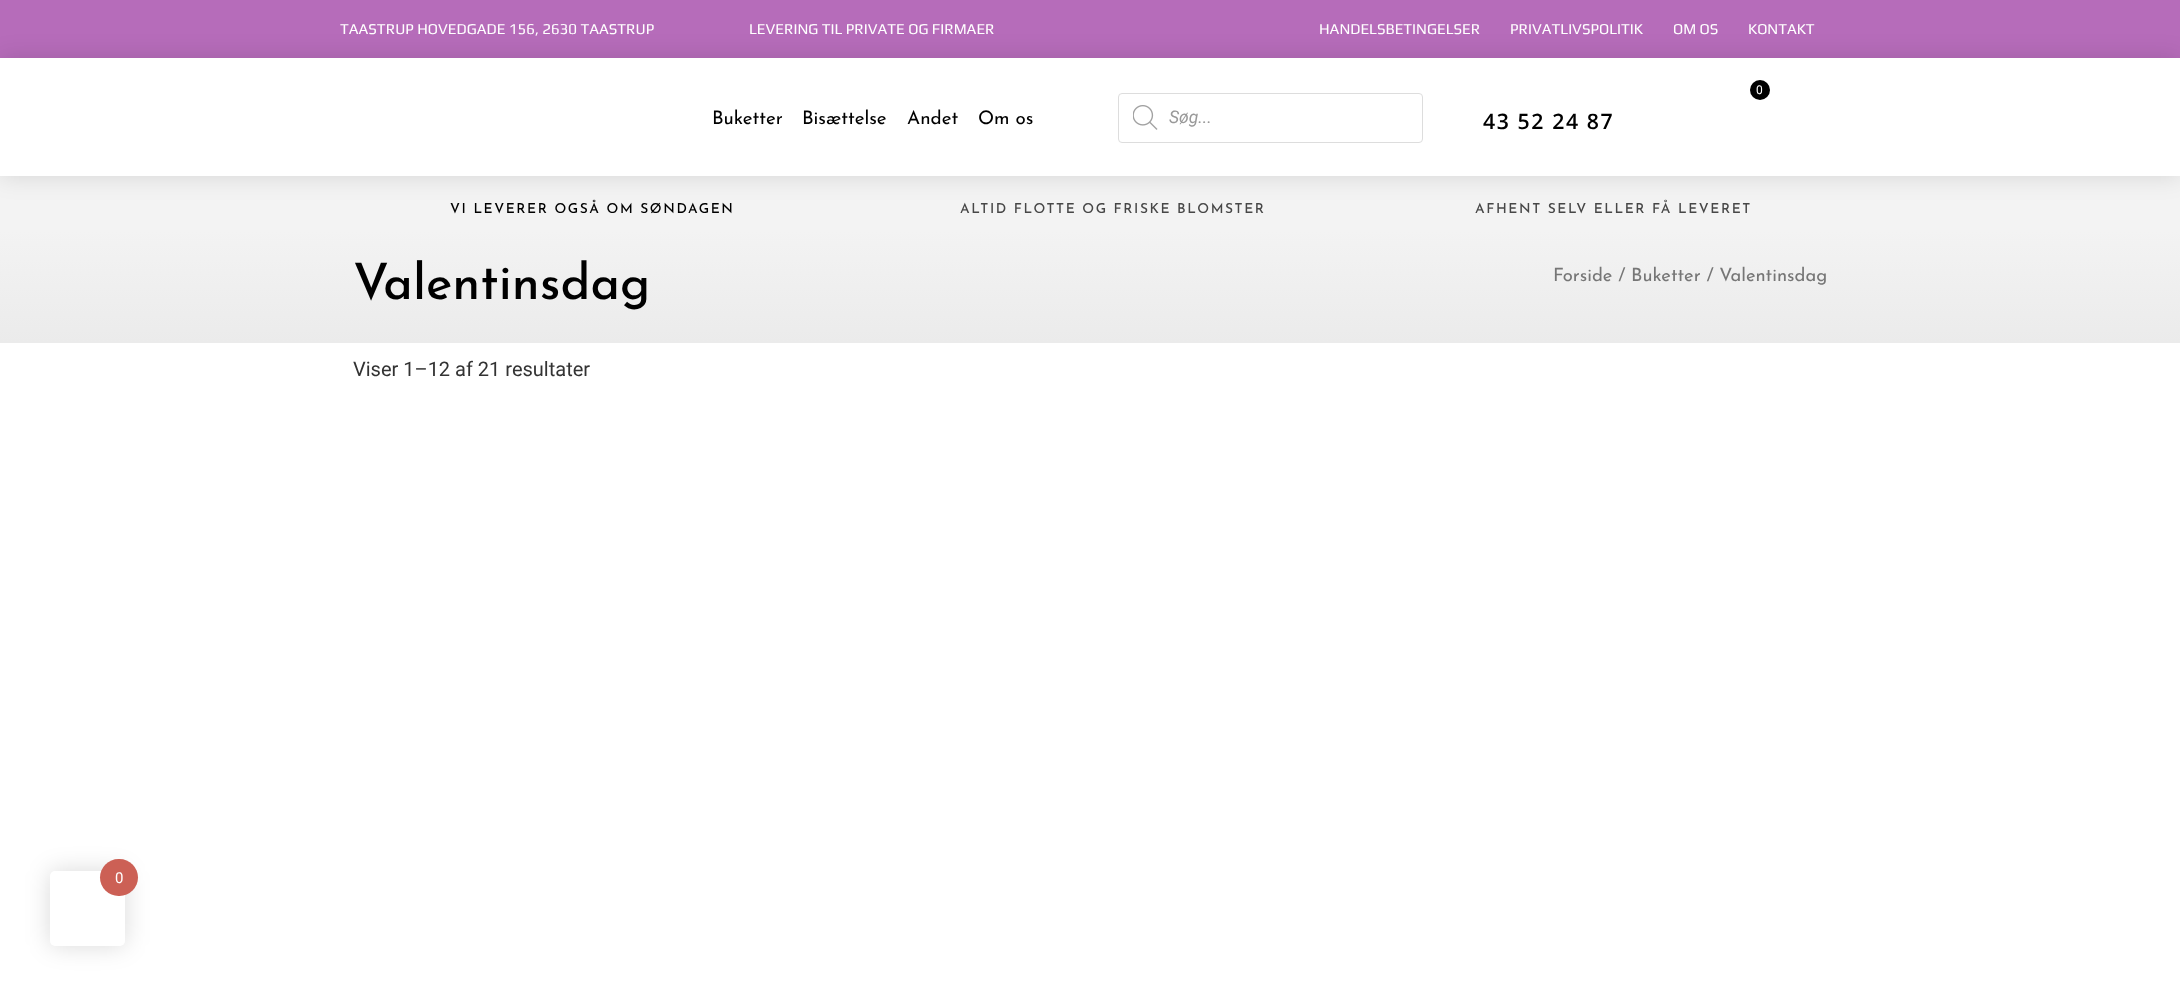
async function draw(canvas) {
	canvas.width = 2180;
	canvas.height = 996;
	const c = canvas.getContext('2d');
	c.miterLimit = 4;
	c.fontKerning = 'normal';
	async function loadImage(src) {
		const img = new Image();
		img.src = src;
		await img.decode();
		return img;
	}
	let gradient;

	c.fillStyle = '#fff';
	c.fillRect(0, 0, 2180, 996);
	c.fillStyle = '#b66cba';
	c.fillRect(0, 0, 2180, 58);
	c.font = '15px Play';
	c.fillStyle = '#fff';
	for (const [text, x, y] of [
		['TAASTRUP HOVEDGADE 156, 2630 TAASTRUP', 340, 34],
		['LEVERING TIL PRIVATE OG FIRMAER', 749, 34],
		['HANDELSBETINGELSER', 1319, 34],
		['PRIVATLIVSPOLITIK', 1510, 34],
		['OM OS', 1673, 34],
		['KONTAKT', 1748, 34],
	]) {
		c.fillText(text, x, y);
	}
	c.fillStyle = '#f3f3f3';
	c.fillRect(0, 176, 2180, 54);
	c.save();
	c.beginPath();
	c.moveTo(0, 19);
	c.lineTo(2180, 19);
	c.lineTo(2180, 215);
	c.lineTo(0, 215);
	c.closePath();
	c.moveTo(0, 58);
	c.lineTo(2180, 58);
	c.lineTo(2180, 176);
	c.lineTo(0, 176);
	c.closePath();
	c.clip('evenodd');
	c.fillStyle = '#0000001f';
	c.filter = 'blur(12.5px)';
	c.beginPath();
	c.rect(0, 58, 2180, 118);
	c.fill();
	c.filter = 'none';
	c.restore();
	c.fillStyle = '#000';
	c.beginPath();
	c.arc(1760, 90, 10, 0, 2 * Math.PI);
	c.fill();
	c.font = '12px Roboto';
	c.fillStyle = '#fff';
	c.fillText('0', 1756, 94);
	c.font = '18.75px Josefin Sans';
	c.fillStyle = '#000';
	for (const [text, x, y] of [
		['Buketter', 712, 124],
		['Bisættelse', 802, 124],
		['Andet', 907, 124],
		['Om os', 978, 124],
	]) {
		c.fillText(text, x, y);
	}
	c.beginPath();
	c.roundRect(1118.5, 93.5, 304, 49, 3.5);
	c.strokeStyle = '#ddd';
	c.stroke();
	c.drawImage(await loadImage('img1.png'), 1133, 105, 25, 25);
	c.font = 'italic 17.5px Roboto';
	c.fillStyle = '#999';
	c.fillText('Søg...', 1169, 123);
	c.letterSpacing = '1.6px';
	c.font = '600 21.25px Open Sans';
	c.fillStyle = '#000';
	c.fillText('43 52 24 87', 1483, 129);
	c.font = '500 13.75px Josefin Sans';
	c.fillText('VI LEVERER OGSÅ OM SØNDAGEN', 450, 213);
	c.fillStyle = '#474747';
	c.fillText('ALTID FLOTTE OG FRISKE BLOMSTER', 960, 213);
	c.fillText('AFHENT SELV ELLER FÅ LEVERET', 1475, 213);
	gradient = c.createLinearGradient(1090, 230, 1090, 343);
	gradient.addColorStop(0, '#f3f3f3');
	gradient.addColorStop(1, '#ebebeb');
	c.fillStyle = gradient;
	c.fillRect(0, 230, 2180, 113);
	c.letterSpacing = '0px';
	c.font = '500 50px Josefin Sans';
	c.fillStyle = '#000';
	c.fillText('Valentinsdag', 353, 299);
	c.font = '18.4px Josefin Sans';
	c.fillStyle = '#767676';
	c.fillText('Forside / Buketter / Valentinsdag', 1553, 281);
	c.font = '20px Roboto';
	c.fillStyle = '#333';
	c.fillText('Viser 1–12 af 21 resultater', 353, 376);
	c.fillStyle = '#00000026';
	c.filter = 'blur(12.5px)';
	c.beginPath();
	c.roundRect(50, 871, 75, 75, 5);
	c.fill();
	c.filter = 'none';
	c.fillStyle = '#fff';
	c.beginPath();
	c.roundRect(50, 871, 75, 75, 5);
	c.fill();
	c.fillStyle = '#cc6055';
	c.beginPath();
	c.roundRect(100, 859, 38, 37, 18.5);
	c.fill();
	c.font = '15px Roboto';
	c.fillStyle = '#fff';
	c.fillText('0', 115, 883);
}

draw(document.querySelector('canvas'));
